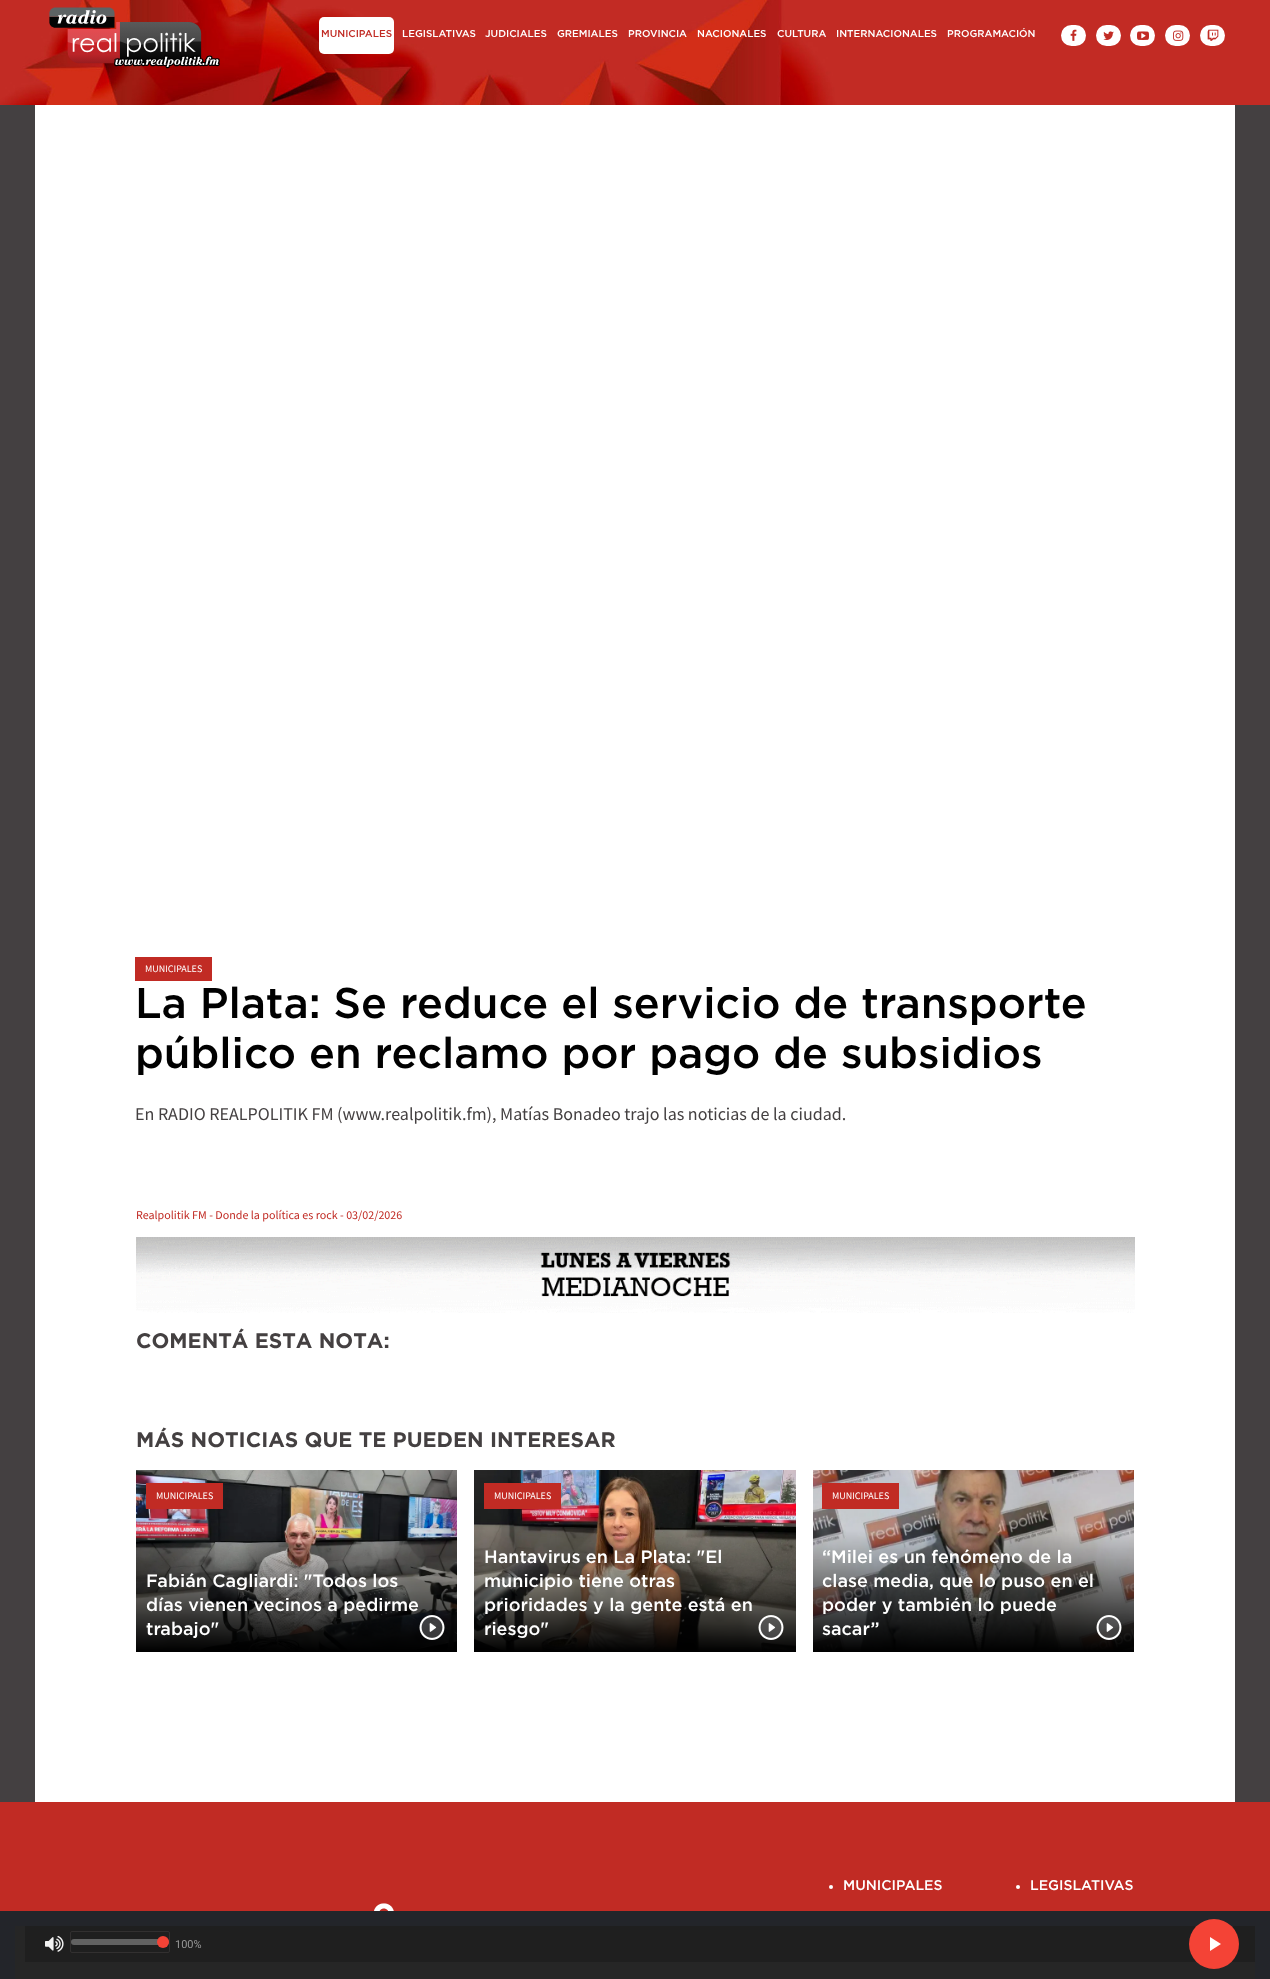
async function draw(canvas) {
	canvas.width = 1270;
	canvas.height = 1979;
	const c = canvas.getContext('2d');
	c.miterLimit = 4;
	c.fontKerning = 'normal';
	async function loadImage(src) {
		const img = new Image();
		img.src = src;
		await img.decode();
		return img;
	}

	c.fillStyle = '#fff';
	c.fillRect(0, 0, 1270, 1979);
	c.drawImage(await loadImage('img1.png'), 0, 0, 1270, 105);
	c.drawImage(await loadImage('img2.png'), 49, 7, 171, 62);
	c.beginPath();
	c.roundRect(319, 17, 75, 37, 5);
	c.fill();
	c.font = '500 10px Gotham';
	c.fillStyle = '#c12b24';
	c.fillText('MUNICIPALES', 321, 37);
	c.fillStyle = '#fff';
	for (const [text, x, y] of [
		['LEGISLATIVAS', 402, 37],
		['JUDICIALES', 485, 37],
		['GREMIALES', 557, 37],
		['PROVINCIA', 628, 37],
		['NACIONALES', 697, 37],
		['CULTURA', 777, 37],
		['INTERNACIONALES', 836, 37],
		['PROGRAMACIÓN', 947, 37],
	]) {
		c.fillText(text, x, y);
	}
	c.beginPath();
	c.roundRect(1061, 25, 25, 21, 10.5);
	c.fill();
	c.drawImage(await loadImage('img3.png'), 1070, 29, 7, 12);
	c.beginPath();
	c.roundRect(1096, 25, 25, 21, 10.5);
	c.fill();
	c.drawImage(await loadImage('img4.png'), 1103, 31, 11, 9);
	c.beginPath();
	c.roundRect(1130, 25, 25, 21, 10.5);
	c.fill();
	c.drawImage(await loadImage('img5.png'), 1137, 31, 12, 9);
	c.beginPath();
	c.roundRect(1165, 25, 25, 21, 10.5);
	c.fill();
	c.drawImage(await loadImage('img6.png'), 1173, 30, 11, 11);
	c.beginPath();
	c.roundRect(1200, 25, 25, 21, 10.5);
	c.fill();
	c.drawImage(await loadImage('img7.png'), 1207, 29, 12, 12);
	for (const [x, y, w, h, color] of [
		[0, 105, 1270, 1697, '#444041'],
		[35, 105, 1200, 1697, '#fff'],
		[135, 957, 77, 24, '#c12b24'],
	]) {
		c.fillStyle = color;
		c.fillRect(x, y, w, h);
	}
	c.font = '10px Source Sans Pro';
	c.fillStyle = '#fff';
	c.fillText('MUNICIPALES', 145, 972);
	c.font = '500 43px Gotham';
	c.fillStyle = '#000';
	c.fillText('La Plata: Se reduce el servicio de transporte', 135, 1018);
	c.fillText('público en reclamo por pago de subsidios', 135, 1068);
	c.font = '18px Source Sans Pro';
	c.fillStyle = '#444041';
	c.fillText('En RADIO REALPOLITIK FM (www.realpolitik.fm), Matías Bonadeo trajo las noticias de la ciudad.', 135, 1120);
	c.font = '12px Source Sans Pro';
	c.fillStyle = '#c12b24';
	c.fillText('Realpolitik FM - Donde la política es rock - 03/02/2026', 136, 1219);
	c.drawImage(await loadImage('img8.png'), 136, 1237, 999, 76);
	c.font = 'bold 21px Gotham';
	c.fillStyle = '#444041';
	c.fillText('COMENTÁ ESTA NOTA:', 136, 1348);
	c.fillText('MÁS NOTICIAS QUE TE PUEDEN INTERESAR', 136, 1447);
	c.drawImage(await loadImage('img9.png'), 136, 1470, 321, 182);
	c.fillStyle = '#c12b24';
	c.fillRect(146, 1483, 77, 26);
	c.font = '10px Source Sans Pro';
	c.fillStyle = '#fff';
	c.fillText('MUNICIPALES', 156, 1499);
	c.font = '500 18px Gotham';
	for (const [text, x, y] of [
		['Fabián Cagliardi: "Todos los', 146, 1587],
		['días vienen vecinos a pedirme', 146, 1611],
		['trabajo"', 146, 1635],
	]) {
		c.fillText(text, x, y);
	}
	c.drawImage(await loadImage('img10.png'), 419, 1615, 26, 25);
	c.drawImage(await loadImage('img11.png'), 474, 1470, 322, 182);
	c.fillStyle = '#c12b24';
	c.fillRect(484, 1483, 77, 26);
	c.font = '10px Source Sans Pro';
	c.fillStyle = '#fff';
	c.fillText('MUNICIPALES', 494, 1499);
	c.font = '500 18px Gotham';
	for (const [text, x, y] of [
		['Hantavirus en La Plata: "El', 484, 1563],
		['municipio tiene otras', 484, 1587],
		['prioridades y la gente está en', 484, 1611],
		['riesgo"', 484, 1635],
	]) {
		c.fillText(text, x, y);
	}
	c.drawImage(await loadImage('img12.png'), 758, 1615, 26, 25);
	c.drawImage(await loadImage('img13.png'), 813, 1470, 321, 182);
	c.fillStyle = '#c12b24';
	c.fillRect(822, 1483, 77, 26);
	c.font = '10px Source Sans Pro';
	c.fillStyle = '#fff';
	c.fillText('MUNICIPALES', 832, 1499);
	c.font = '500 18px Gotham';
	for (const [text, x, y] of [
		['“Milei es un fenómeno de la', 822, 1563],
		['clase media, que lo puso en el', 822, 1587],
		['poder y también lo puede', 822, 1611],
		['sacar”', 822, 1635],
	]) {
		c.fillText(text, x, y);
	}
	c.drawImage(await loadImage('img14.png'), 1096, 1615, 26, 25);
	c.fillStyle = '#c12b24';
	c.fillRect(0, 1802, 1270, 109);
	c.fillStyle = '#fff';
	c.beginPath();
	c.arc(831, 1887, 2, 0, 2 * Math.PI);
	c.fill();
	c.font = '500 14px Gotham';
	c.fillText('MUNICIPALES', 843, 1890);
	c.beginPath();
	c.arc(1018, 1887, 2, 0, 2 * Math.PI);
	c.fill();
	c.fillText('LEGISLATIVAS', 1030, 1890);
	c.drawImage(await loadImage('img15.png'), 374, 1903, 20, 8);
	for (const [x, y, w, h, color] of [
		[0, 1911, 1270, 68, '#23252a'],
		[15, 1926, 1240, 53, '#262626'],
		[25, 1926, 1230, 36, '#1f1f1f'],
	]) {
		c.fillStyle = color;
		c.fillRect(x, y, w, h);
	}
	c.drawImage(await loadImage('img16.png'), 45, 1935, 19, 17);
	c.beginPath();
	c.roundRect(70.5, 1931.5, 99, 21, 1.5);
	c.strokeStyle = '#323030';
	c.stroke();
	c.fillStyle = '#626262';
	c.beginPath();
	c.roundRect(71, 1939, 98, 6, 3);
	c.fill();
	c.fillStyle = '#f44336';
	c.beginPath();
	c.arc(163, 1942, 6, 0, 2 * Math.PI);
	c.fill();
	c.font = '11px Roboto';
	c.fillStyle = '#989898';
	c.fillText('100%', 175, 1948);
	c.fillStyle = '#f44336';
	c.beginPath();
	c.arc(1214, 1944, 25, 0, 2 * Math.PI);
	c.fill();
	c.fillStyle = '#fff';
	c.beginPath();
	c.moveTo(1210, 1937);
	c.lineTo(1210, 1951);
	c.lineTo(1221, 1944);
	c.closePath();
	c.fill();
}

draw(document.querySelector('canvas'));
